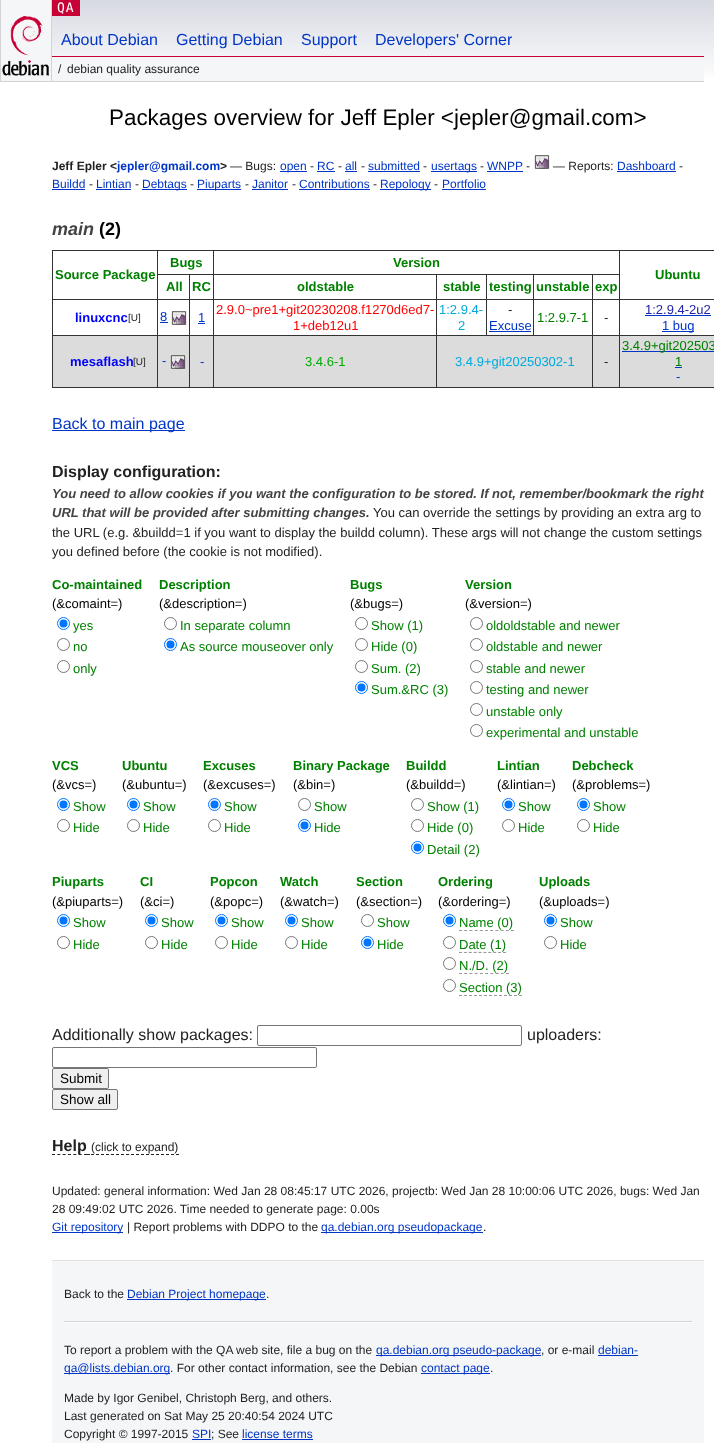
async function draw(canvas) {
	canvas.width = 714;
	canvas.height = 1443;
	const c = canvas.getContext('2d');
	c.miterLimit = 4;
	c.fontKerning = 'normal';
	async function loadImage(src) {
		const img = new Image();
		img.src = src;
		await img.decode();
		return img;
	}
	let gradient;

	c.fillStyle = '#fff';
	c.fillRect(0, 0, 714, 1443);
	gradient = c.createLinearGradient(357, 0, 357, 82);
	gradient.addColorStop(0, '#d7d9e2');
	gradient.addColorStop(1, '#fff');
	c.fillStyle = gradient;
	c.fillRect(52, 0, 662, 77);
	for (const [x, y, w, h, color] of [
		[1, 0, 50, 81, '#f5f6f7'],
		[51, 0, 1, 82, '#d2d3d7'],
		[0, 81, 52, 1, '#d2d3d7'],
		[0, 0, 1, 82, '#d2d3d7'],
	]) {
		c.fillStyle = color;
		c.fillRect(x, y, w, h);
	}
	c.drawImage(await loadImage('img1.png'), 2, 16, 47, 60);
	c.fillStyle = '#c70036';
	c.fillRect(52, 0, 28, 16);
	c.letterSpacing = '1px';
	c.font = '13px DejaVu Sans Mono';
	c.fillStyle = '#fff';
	c.fillText('QA', 57, 12);
	c.fillStyle = '#c70036';
	c.fillRect(52, 56, 652, 1);
	c.letterSpacing = '0px';
	c.font = '16px Liberation Sans';
	c.fillStyle = '#0035c7';
	for (const [text, x, y] of [
		['About Debian', 61, 45],
		['Getting Debian', 176, 45],
		['Support', 301, 45],
		['Developers\' Corner', 375, 45],
	]) {
		c.fillText(text, x, y);
	}
	c.fillStyle = '#f5f6f7';
	c.fillRect(52, 66, 652, 15);
	c.fillStyle = '#d2d3d7';
	c.fillRect(52, 81, 652, 1);
	c.font = '12px Liberation Sans';
	c.fillStyle = '#222';
	c.fillText('/', 58, 73);
	c.fillText('debian quality assurance', 67, 73);
	c.font = '22.4px Liberation Sans';
	c.fillStyle = '#000';
	c.fillText('Packages overview for Jeff Epler <jepler@gmail.com>', 109, 125);
	c.font = 'bold 12px Liberation Sans';
	c.fillStyle = '#222';
	c.fillText('Jeff Epler <', 52, 170);
	c.fillStyle = '#0035c7';
	c.fillText('jepler@gmail.com', 117, 170);
	c.fillStyle = '#222';
	c.fillText('>', 220, 170);
	c.font = '12px Liberation Sans';
	c.fillText('— Bugs:', 230, 170);
	c.fillStyle = '#0035c7';
	c.fillRect(280, 171, 27, 1);
	c.fillText('open', 280, 170);
	c.fillStyle = '#222';
	c.fillText('-', 310, 170);
	c.fillStyle = '#0035c7';
	c.fillText('RC', 317, 170);
	c.fillRect(317, 171, 18, 1);
	c.fillStyle = '#222';
	c.fillText('-', 338, 170);
	c.fillStyle = '#0035c7';
	c.fillText('all', 345, 170);
	c.fillRect(345, 171, 12, 1);
	c.fillStyle = '#222';
	c.fillText('-', 361, 170);
	c.fillStyle = '#0035c7';
	c.fillText('submitted', 368, 170);
	c.fillRect(368, 171, 52, 1);
	c.fillStyle = '#222';
	c.fillText('-', 423, 170);
	c.fillStyle = '#0035c7';
	c.fillRect(431, 171, 46, 1);
	c.fillText('usertags', 431, 170);
	c.fillStyle = '#222';
	c.fillText('-', 480, 170);
	c.fillStyle = '#0035c7';
	c.fillRect(487, 171, 36, 1);
	c.fillText('WNPP', 487, 170);
	c.fillStyle = '#222';
	c.fillText('-', 526, 170);
	c.drawImage(await loadImage('img2.png'), 534, 155, 16, 14);
	c.fillText('— Reports:', 553, 170);
	c.fillStyle = '#0035c7';
	c.fillText('Dashboard', 617, 170);
	c.fillRect(617, 171, 59, 1);
	c.fillStyle = '#222';
	c.fillText('-', 679, 170);
	c.fillStyle = '#0035c7';
	c.fillText('Buildd', 52, 188);
	c.fillRect(52, 189, 33, 1);
	c.fillStyle = '#222';
	c.fillText('-', 89, 188);
	c.fillStyle = '#0035c7';
	c.fillText('Lintian', 96, 188);
	c.fillRect(96, 189, 35, 1);
	c.fillStyle = '#222';
	c.fillText('-', 135, 188);
	c.fillStyle = '#0035c7';
	c.fillRect(142, 189, 45, 1);
	c.fillText('Debtags', 142, 188);
	c.fillStyle = '#222';
	c.fillText('-', 190, 188);
	c.fillStyle = '#0035c7';
	c.fillRect(197, 189, 44, 1);
	c.fillText('Piuparts', 197, 188);
	c.fillStyle = '#222';
	c.fillText('-', 245, 188);
	c.fillStyle = '#0035c7';
	c.fillText('Janitor', 252, 188);
	c.fillRect(252, 189, 36, 1);
	c.fillStyle = '#222';
	c.fillText('-', 292, 188);
	c.fillStyle = '#0035c7';
	c.fillText('Contributions', 299, 188);
	c.fillRect(299, 189, 71, 1);
	c.fillStyle = '#222';
	c.fillText('-', 373, 188);
	c.fillStyle = '#0035c7';
	c.fillRect(380, 189, 51, 1);
	c.fillText('Repology', 380, 188);
	c.fillStyle = '#222';
	c.fillText('-', 434, 188);
	c.fillStyle = '#0035c7';
	c.fillText('Portfolio', 442, 188);
	c.fillRect(442, 189, 44, 1);
	c.font = 'italic bold 18px Liberation Sans';
	c.fillStyle = '#444';
	c.fillText('main', 52, 235);
	c.font = 'bold 18px Liberation Sans';
	c.fillStyle = '#000';
	c.fillText('(2)', 99, 235);
	for (const [x, y, w, h, color] of [
		[52, 250, 662, 1, '#333'],
		[52, 250, 1, 138, '#333'],
		[213, 251, 1, 49, '#333'],
		[158, 274, 56, 1, '#333'],
	]) {
		c.fillStyle = color;
		c.fillRect(x, y, w, h);
	}
	c.font = 'bold 13px Liberation Sans';
	c.fillStyle = '#008000';
	c.fillText('Bugs', 170, 267);
	c.fillStyle = '#333';
	c.fillRect(619, 251, 1, 49);
	c.fillRect(214, 274, 406, 1);
	c.fillStyle = '#008000';
	c.fillText('Version', 393, 267);
	for (const [x, y, w, h, color] of [
		[53, 336, 661, 51, '#dcdcdc'],
		[157, 251, 1, 137, '#333'],
		[53, 299, 105, 1, '#333'],
	]) {
		c.fillStyle = color;
		c.fillRect(x, y, w, h);
	}
	c.fillStyle = '#008000';
	c.fillText('Source Package', 55, 279);
	c.fillStyle = '#333';
	c.fillRect(620, 299, 94, 1);
	c.fillStyle = '#008000';
	c.fillText('Ubuntu', 655, 279);
	c.fillStyle = '#333';
	c.fillRect(189, 275, 1, 25);
	c.fillRect(158, 299, 56, 1);
	c.fillStyle = '#008000';
	c.fillText('All', 166, 291);
	c.fillText('RC', 192, 291);
	c.fillStyle = '#333';
	c.fillRect(436, 275, 1, 25);
	c.fillRect(214, 299, 223, 1);
	c.fillStyle = '#008000';
	c.fillText('oldstable', 297, 291);
	c.fillStyle = '#333';
	c.fillRect(486, 275, 1, 25);
	c.fillRect(437, 299, 50, 1);
	c.fillStyle = '#008000';
	c.fillText('stable', 443, 291);
	c.fillStyle = '#333';
	c.fillRect(533, 275, 1, 25);
	c.fillRect(487, 299, 47, 1);
	c.fillStyle = '#008000';
	c.fillText('testing', 489, 291);
	c.fillStyle = '#333';
	c.fillRect(592, 275, 1, 25);
	c.fillRect(534, 299, 86, 1);
	c.fillStyle = '#008000';
	c.fillText('unstable', 536, 291);
	c.fillText('exp', 595, 291);
	c.fillStyle = '#333';
	c.fillRect(58, 335, 100, 1);
	c.fillStyle = '#00f';
	c.fillText('linuxcnc', 75, 322);
	c.font = '10px Liberation Sans';
	c.fillStyle = '#222';
	c.fillText('[U]', 128, 321);
	c.fillStyle = '#333';
	c.fillRect(189, 300, 1, 36);
	c.fillRect(158, 335, 32, 1);
	c.font = '13px Liberation Sans';
	c.fillStyle = '#0035c7';
	c.fillText('8', 160, 321);
	c.fillRect(160, 322, 8, 1);
	c.drawImage(await loadImage('img2.png'), 171, 311, 16, 14);
	c.fillStyle = '#333';
	c.fillRect(213, 300, 1, 36);
	c.fillRect(190, 335, 24, 1);
	c.fillStyle = '#0035c7';
	c.fillText('1', 198, 322);
	for (const [x, y, w, h, color] of [
		[198, 323, 7, 1, '#0035c7'],
		[436, 300, 1, 36, '#333'],
		[214, 335, 223, 1, '#333'],
	]) {
		c.fillStyle = color;
		c.fillRect(x, y, w, h);
	}
	c.fillStyle = '#f00';
	c.fillText('2.9.0~pre1+git20230208.f1270d6ed7-', 216, 314);
	c.fillText('1+deb12u1', 293, 330);
	c.fillStyle = '#333';
	c.fillRect(486, 300, 1, 36);
	c.fillRect(437, 335, 50, 1);
	c.fillStyle = '#0ad';
	c.fillText('1:2.9.4-', 439, 314);
	c.fillText('2', 458, 330);
	c.fillStyle = '#333';
	c.fillRect(533, 300, 1, 36);
	c.fillRect(487, 335, 47, 1);
	c.fillStyle = '#222';
	c.fillText('-', 508, 314);
	c.fillStyle = '#0035c7';
	c.fillText('Excuse', 489, 330);
	for (const [x, y, w, h, color] of [
		[489, 331, 42, 1, '#0035c7'],
		[592, 300, 1, 36, '#333'],
		[534, 335, 59, 1, '#333'],
	]) {
		c.fillStyle = color;
		c.fillRect(x, y, w, h);
	}
	c.fillStyle = '#008000';
	c.fillText('1:2.9.7-1', 537, 322);
	c.fillStyle = '#333';
	c.fillRect(619, 300, 1, 36);
	c.fillRect(593, 335, 121, 1);
	c.fillStyle = '#222';
	c.fillText('-', 604, 322);
	c.fillStyle = '#22a';
	c.fillText('1:2.9.4-2u2', 645, 314);
	c.fillStyle = '#0035c7';
	c.fillRect(645, 315, 66, 1);
	c.fillRect(662, 331, 32, 1);
	c.fillText('1 bug', 662, 330);
	c.fillStyle = '#333';
	c.fillRect(53, 335, 5, 1);
	c.fillRect(58, 387, 100, 1);
	c.font = 'bold 13px Liberation Sans';
	c.fillStyle = '#00f';
	c.fillText('mesaflash', 70, 366);
	c.font = '10px Liberation Sans';
	c.fillStyle = '#222';
	c.fillText('[U]', 133, 365);
	c.fillStyle = '#333';
	c.fillRect(189, 336, 1, 52);
	c.fillRect(158, 387, 32, 1);
	c.font = '13px Liberation Sans';
	c.fillStyle = '#0035c7';
	c.fillText('-', 162, 365);
	c.drawImage(await loadImage('img3.png'), 170, 355, 16, 14);
	c.fillStyle = '#333';
	c.fillRect(213, 336, 1, 52);
	c.fillRect(190, 387, 24, 1);
	c.fillStyle = '#0035c7';
	c.fillText('-', 200, 366);
	c.fillStyle = '#333';
	c.fillRect(436, 336, 1, 52);
	c.fillRect(214, 387, 223, 1);
	c.fillStyle = '#0a0';
	c.fillText('3.4.6-1', 305, 366);
	c.fillStyle = '#333';
	c.fillRect(592, 336, 1, 52);
	c.fillRect(437, 387, 156, 1);
	c.fillStyle = '#0ad';
	c.fillText('3.4.9+git20250302-1', 455, 366);
	c.fillStyle = '#333';
	c.fillRect(619, 336, 1, 52);
	c.fillRect(593, 387, 121, 1);
	c.fillStyle = '#222';
	c.fillText('-', 604, 366);
	c.fillStyle = '#0035c7';
	c.fillRect(622, 351, 92, 1);
	c.fillStyle = '#008000';
	c.fillText('3.4.9+git202503', 622, 350);
	c.fillText('1', 675, 366);
	c.fillStyle = '#0035c7';
	c.fillRect(675, 367, 7, 1);
	c.fillText('-', 676, 381);
	c.fillStyle = '#333';
	c.fillRect(53, 387, 5, 1);
	c.fillStyle = '#0035c7';
	c.fillRect(52, 430, 133, 1);
	c.font = '16px Liberation Sans';
	c.fillText('Back to main page', 52, 429);
	c.font = 'bold 16px Liberation Sans';
	c.fillStyle = '#222';
	c.fillText('Display configuration:', 52, 477);
	c.font = 'italic bold 13px Liberation Sans';
	c.fillStyle = '#444';
	c.fillText('You need to allow cookies if you want the configuration to be stored. If not, remember/bookmark the right', 52, 498);
	c.fillText('URL that will be provided after submitting changes.', 52, 517);
	c.font = '13px Liberation Sans';
	c.fillStyle = '#222';
	for (const [text, x, y] of [
		['You can override the settings by providing an extra arg to', 373, 517],
		['the URL (e.g. &buildd=1 if you want to display the buildd column). These args will not change the custom settings', 52, 537],
		['you defined before (the cookie is not modified).', 52, 556],
	]) {
		c.fillText(text, x, y);
	}
	c.font = 'bold 13px Liberation Sans';
	c.fillStyle = '#008000';
	c.fillText('Co-maintained', 52, 589);
	c.font = '13px Liberation Sans';
	c.fillStyle = '#000';
	c.fillText('(&comaint=)', 52, 608);
	c.beginPath();
	c.arc(63.5, 623.5, 6, 0, 2 * Math.PI);
	c.strokeStyle = '#0075ff';
	c.stroke();
	c.fillStyle = '#0075ff';
	c.beginPath();
	c.arc(63.5, 623.5, 4, 0, 2 * Math.PI);
	c.fill();
	c.fillStyle = '#008000';
	c.fillText('yes', 73, 630);
	c.beginPath();
	c.arc(63.5, 644.5, 6, 0, 2 * Math.PI);
	c.strokeStyle = '#767676';
	c.stroke();
	c.fillText('no', 73, 651);
	c.beginPath();
	c.arc(63.5, 666.5, 6, 0, 2 * Math.PI);
	c.stroke();
	c.fillText('only', 73, 673);
	c.font = 'bold 13px Liberation Sans';
	c.fillText('Description', 159, 589);
	c.font = '13px Liberation Sans';
	c.fillStyle = '#000';
	c.fillText('(&description=)', 159, 608);
	c.beginPath();
	c.arc(170.5, 623.5, 6, 0, 2 * Math.PI);
	c.stroke();
	c.fillStyle = '#008000';
	c.fillText('In separate column', 180, 630);
	c.beginPath();
	c.arc(170.5, 644.5, 6, 0, 2 * Math.PI);
	c.strokeStyle = '#0075ff';
	c.stroke();
	c.fillStyle = '#0075ff';
	c.beginPath();
	c.arc(170.5, 644.5, 4, 0, 2 * Math.PI);
	c.fill();
	c.fillStyle = '#008000';
	c.fillText('As source mouseover only', 180, 651);
	c.font = 'bold 13px Liberation Sans';
	c.fillText('Bugs', 350, 589);
	c.font = '13px Liberation Sans';
	c.fillStyle = '#000';
	c.fillText('(&bugs=)', 350, 608);
	c.beginPath();
	c.arc(361.5, 623.5, 6, 0, 2 * Math.PI);
	c.strokeStyle = '#767676';
	c.stroke();
	c.fillStyle = '#008000';
	c.fillText('Show (1)', 371, 630);
	c.beginPath();
	c.arc(361.5, 644.5, 6, 0, 2 * Math.PI);
	c.stroke();
	c.fillText('Hide (0)', 371, 651);
	c.beginPath();
	c.arc(361.5, 666.5, 6, 0, 2 * Math.PI);
	c.stroke();
	c.fillText('Sum. (2)', 371, 673);
	c.beginPath();
	c.arc(361.5, 687.5, 6, 0, 2 * Math.PI);
	c.strokeStyle = '#0075ff';
	c.stroke();
	c.fillStyle = '#0075ff';
	c.beginPath();
	c.arc(361.5, 687.5, 4, 0, 2 * Math.PI);
	c.fill();
	c.fillStyle = '#008000';
	c.fillText('Sum.&RC (3)', 371, 694);
	c.font = 'bold 13px Liberation Sans';
	c.fillText('Version', 465, 589);
	c.font = '13px Liberation Sans';
	c.fillStyle = '#000';
	c.fillText('(&version=)', 465, 608);
	c.beginPath();
	c.arc(476.5, 623.5, 6, 0, 2 * Math.PI);
	c.strokeStyle = '#767676';
	c.stroke();
	c.fillStyle = '#008000';
	c.fillText('oldoldstable and newer', 486, 630);
	c.beginPath();
	c.arc(476.5, 644.5, 6, 0, 2 * Math.PI);
	c.stroke();
	c.fillText('oldstable and newer', 486, 651);
	c.beginPath();
	c.arc(476.5, 666.5, 6, 0, 2 * Math.PI);
	c.stroke();
	c.fillText('stable and newer', 486, 673);
	c.beginPath();
	c.arc(476.5, 687.5, 6, 0, 2 * Math.PI);
	c.stroke();
	c.fillText('testing and newer', 486, 694);
	c.beginPath();
	c.arc(476.5, 709.5, 6, 0, 2 * Math.PI);
	c.stroke();
	c.fillText('unstable only', 486, 716);
	c.beginPath();
	c.arc(476.5, 730.5, 6, 0, 2 * Math.PI);
	c.stroke();
	c.fillText('experimental and unstable', 486, 737);
	c.font = 'bold 13px Liberation Sans';
	c.fillText('VCS', 52, 770);
	c.font = '13px Liberation Sans';
	c.fillStyle = '#000';
	c.fillText('(&vcs=)', 52, 789);
	c.beginPath();
	c.arc(63.5, 804.5, 6, 0, 2 * Math.PI);
	c.strokeStyle = '#0075ff';
	c.stroke();
	c.fillStyle = '#0075ff';
	c.beginPath();
	c.arc(63.5, 804.5, 4, 0, 2 * Math.PI);
	c.fill();
	c.fillStyle = '#008000';
	c.fillText('Show', 73, 811);
	c.beginPath();
	c.arc(63.5, 825.5, 6, 0, 2 * Math.PI);
	c.strokeStyle = '#767676';
	c.stroke();
	c.fillText('Hide', 73, 832);
	c.font = 'bold 13px Liberation Sans';
	c.fillText('Ubuntu', 122, 770);
	c.font = '13px Liberation Sans';
	c.fillStyle = '#000';
	c.fillText('(&ubuntu=)', 122, 789);
	c.beginPath();
	c.arc(133.5, 804.5, 6, 0, 2 * Math.PI);
	c.strokeStyle = '#0075ff';
	c.stroke();
	c.fillStyle = '#0075ff';
	c.beginPath();
	c.arc(133.5, 804.5, 4, 0, 2 * Math.PI);
	c.fill();
	c.fillStyle = '#008000';
	c.fillText('Show', 143, 811);
	c.beginPath();
	c.arc(133.5, 825.5, 6, 0, 2 * Math.PI);
	c.strokeStyle = '#767676';
	c.stroke();
	c.fillText('Hide', 143, 832);
	c.font = 'bold 13px Liberation Sans';
	c.fillText('Excuses', 203, 770);
	c.font = '13px Liberation Sans';
	c.fillStyle = '#000';
	c.fillText('(&excuses=)', 203, 789);
	c.beginPath();
	c.arc(214.5, 804.5, 6, 0, 2 * Math.PI);
	c.strokeStyle = '#0075ff';
	c.stroke();
	c.fillStyle = '#0075ff';
	c.beginPath();
	c.arc(214.5, 804.5, 4, 0, 2 * Math.PI);
	c.fill();
	c.fillStyle = '#008000';
	c.fillText('Show', 224, 811);
	c.beginPath();
	c.arc(214.5, 825.5, 6, 0, 2 * Math.PI);
	c.strokeStyle = '#767676';
	c.stroke();
	c.fillText('Hide', 224, 832);
	c.font = 'bold 13px Liberation Sans';
	c.fillText('Binary Package', 293, 770);
	c.font = '13px Liberation Sans';
	c.fillStyle = '#000';
	c.fillText('(&bin=)', 293, 789);
	c.beginPath();
	c.arc(304.5, 804.5, 6, 0, 2 * Math.PI);
	c.stroke();
	c.fillStyle = '#008000';
	c.fillText('Show', 314, 811);
	c.beginPath();
	c.arc(304.5, 825.5, 6, 0, 2 * Math.PI);
	c.strokeStyle = '#0075ff';
	c.stroke();
	c.fillStyle = '#0075ff';
	c.beginPath();
	c.arc(304.5, 825.5, 4, 0, 2 * Math.PI);
	c.fill();
	c.fillStyle = '#008000';
	c.fillText('Hide', 314, 832);
	c.font = 'bold 13px Liberation Sans';
	c.fillText('Buildd', 406, 770);
	c.font = '13px Liberation Sans';
	c.fillStyle = '#000';
	c.fillText('(&buildd=)', 406, 789);
	c.beginPath();
	c.arc(417.5, 804.5, 6, 0, 2 * Math.PI);
	c.strokeStyle = '#767676';
	c.stroke();
	c.fillStyle = '#008000';
	c.fillText('Show (1)', 427, 811);
	c.beginPath();
	c.arc(417.5, 825.5, 6, 0, 2 * Math.PI);
	c.stroke();
	c.fillText('Hide (0)', 427, 832);
	c.beginPath();
	c.arc(417.5, 847.5, 6, 0, 2 * Math.PI);
	c.strokeStyle = '#0075ff';
	c.stroke();
	c.fillStyle = '#0075ff';
	c.beginPath();
	c.arc(417.5, 847.5, 4, 0, 2 * Math.PI);
	c.fill();
	c.fillStyle = '#008000';
	c.fillText('Detail (2)', 427, 854);
	c.font = 'bold 13px Liberation Sans';
	c.fillText('Lintian', 497, 770);
	c.font = '13px Liberation Sans';
	c.fillStyle = '#000';
	c.fillText('(&lintian=)', 497, 789);
	c.beginPath();
	c.arc(508.5, 804.5, 6, 0, 2 * Math.PI);
	c.stroke();
	c.fillStyle = '#0075ff';
	c.beginPath();
	c.arc(508.5, 804.5, 4, 0, 2 * Math.PI);
	c.fill();
	c.fillStyle = '#008000';
	c.fillText('Show', 518, 811);
	c.beginPath();
	c.arc(508.5, 825.5, 6, 0, 2 * Math.PI);
	c.strokeStyle = '#767676';
	c.stroke();
	c.fillText('Hide', 518, 832);
	c.font = 'bold 13px Liberation Sans';
	c.fillText('Debcheck', 572, 770);
	c.font = '13px Liberation Sans';
	c.fillStyle = '#000';
	c.fillText('(&problems=)', 572, 789);
	c.beginPath();
	c.arc(583.5, 804.5, 6, 0, 2 * Math.PI);
	c.strokeStyle = '#0075ff';
	c.stroke();
	c.fillStyle = '#0075ff';
	c.beginPath();
	c.arc(583.5, 804.5, 4, 0, 2 * Math.PI);
	c.fill();
	c.fillStyle = '#008000';
	c.fillText('Show', 593, 811);
	c.beginPath();
	c.arc(583.5, 825.5, 6, 0, 2 * Math.PI);
	c.strokeStyle = '#767676';
	c.stroke();
	c.fillText('Hide', 593, 832);
	c.font = 'bold 13px Liberation Sans';
	c.fillText('Piuparts', 52, 886);
	c.font = '13px Liberation Sans';
	c.fillStyle = '#000';
	c.fillText('(&piuparts=)', 52, 906);
	c.beginPath();
	c.arc(63.5, 920.5, 6, 0, 2 * Math.PI);
	c.strokeStyle = '#0075ff';
	c.stroke();
	c.fillStyle = '#0075ff';
	c.beginPath();
	c.arc(63.5, 920.5, 4, 0, 2 * Math.PI);
	c.fill();
	c.fillStyle = '#008000';
	c.fillText('Show', 73, 927);
	c.beginPath();
	c.arc(63.5, 942.5, 6, 0, 2 * Math.PI);
	c.strokeStyle = '#767676';
	c.stroke();
	c.fillText('Hide', 73, 949);
	c.font = 'bold 13px Liberation Sans';
	c.fillText('CI', 140, 886);
	c.font = '13px Liberation Sans';
	c.fillStyle = '#000';
	c.fillText('(&ci=)', 140, 906);
	c.beginPath();
	c.arc(151.5, 920.5, 6, 0, 2 * Math.PI);
	c.strokeStyle = '#0075ff';
	c.stroke();
	c.fillStyle = '#0075ff';
	c.beginPath();
	c.arc(151.5, 920.5, 4, 0, 2 * Math.PI);
	c.fill();
	c.fillStyle = '#008000';
	c.fillText('Show', 161, 927);
	c.beginPath();
	c.arc(151.5, 942.5, 6, 0, 2 * Math.PI);
	c.strokeStyle = '#767676';
	c.stroke();
	c.fillText('Hide', 161, 949);
	c.font = 'bold 13px Liberation Sans';
	c.fillText('Popcon', 210, 886);
	c.font = '13px Liberation Sans';
	c.fillStyle = '#000';
	c.fillText('(&popc=)', 210, 906);
	c.beginPath();
	c.arc(221.5, 920.5, 6, 0, 2 * Math.PI);
	c.strokeStyle = '#0075ff';
	c.stroke();
	c.fillStyle = '#0075ff';
	c.beginPath();
	c.arc(221.5, 920.5, 4, 0, 2 * Math.PI);
	c.fill();
	c.fillStyle = '#008000';
	c.fillText('Show', 231, 927);
	c.beginPath();
	c.arc(221.5, 942.5, 6, 0, 2 * Math.PI);
	c.strokeStyle = '#767676';
	c.stroke();
	c.fillText('Hide', 231, 949);
	c.font = 'bold 13px Liberation Sans';
	c.fillText('Watch', 280, 886);
	c.font = '13px Liberation Sans';
	c.fillStyle = '#000';
	c.fillText('(&watch=)', 280, 906);
	c.beginPath();
	c.arc(291.5, 920.5, 6, 0, 2 * Math.PI);
	c.strokeStyle = '#0075ff';
	c.stroke();
	c.fillStyle = '#0075ff';
	c.beginPath();
	c.arc(291.5, 920.5, 4, 0, 2 * Math.PI);
	c.fill();
	c.fillStyle = '#008000';
	c.fillText('Show', 301, 927);
	c.beginPath();
	c.arc(291.5, 942.5, 6, 0, 2 * Math.PI);
	c.strokeStyle = '#767676';
	c.stroke();
	c.fillText('Hide', 301, 949);
	c.font = 'bold 13px Liberation Sans';
	c.fillText('Section', 356, 886);
	c.font = '13px Liberation Sans';
	c.fillStyle = '#000';
	c.fillText('(&section=)', 356, 906);
	c.beginPath();
	c.arc(367.5, 920.5, 6, 0, 2 * Math.PI);
	c.stroke();
	c.fillStyle = '#008000';
	c.fillText('Show', 377, 927);
	c.beginPath();
	c.arc(367.5, 942.5, 6, 0, 2 * Math.PI);
	c.strokeStyle = '#0075ff';
	c.stroke();
	c.fillStyle = '#0075ff';
	c.beginPath();
	c.arc(367.5, 942.5, 4, 0, 2 * Math.PI);
	c.fill();
	c.fillStyle = '#008000';
	c.fillText('Hide', 377, 949);
	c.font = 'bold 13px Liberation Sans';
	c.fillText('Ordering', 438, 886);
	c.font = '13px Liberation Sans';
	c.fillStyle = '#000';
	c.fillText('(&ordering=)', 438, 906);
	c.beginPath();
	c.arc(449.5, 920.5, 6, 0, 2 * Math.PI);
	c.stroke();
	c.fillStyle = '#0075ff';
	c.beginPath();
	c.arc(449.5, 920.5, 4, 0, 2 * Math.PI);
	c.fill();
	c.fillStyle = '#008000';
	c.fillText('Name (0)', 459, 927);
	c.beginPath();
	c.moveTo(459, 930.5);
	c.lineTo(514, 930.5);
	c.strokeStyle = '#999';
	c.setLineDash([3, 2.2]);
	c.stroke();
	c.beginPath();
	c.arc(449.5, 942.5, 6, 0, 2 * Math.PI);
	c.strokeStyle = '#767676';
	c.setLineDash([]);
	c.stroke();
	c.fillText('Date (1)', 459, 949);
	c.beginPath();
	c.moveTo(459, 952.5);
	c.lineTo(506, 952.5);
	c.strokeStyle = '#999';
	c.setLineDash([3, 1.89]);
	c.stroke();
	c.beginPath();
	c.arc(449.5, 963.5, 6, 0, 2 * Math.PI);
	c.strokeStyle = '#767676';
	c.setLineDash([]);
	c.stroke();
	c.fillText('N./D. (2)', 459, 970);
	c.beginPath();
	c.moveTo(459, 973.5);
	c.lineTo(509, 973.5);
	c.strokeStyle = '#999';
	c.setLineDash([3, 2.22]);
	c.stroke();
	c.beginPath();
	c.arc(449.5, 985.5, 6, 0, 2 * Math.PI);
	c.strokeStyle = '#767676';
	c.setLineDash([]);
	c.stroke();
	c.fillText('Section (3)', 459, 992);
	c.beginPath();
	c.moveTo(459, 995.5);
	c.lineTo(522, 995.5);
	c.strokeStyle = '#999';
	c.setLineDash([3, 2]);
	c.stroke();
	c.font = 'bold 13px Liberation Sans';
	c.fillText('Uploads', 539, 886);
	c.font = '13px Liberation Sans';
	c.fillStyle = '#000';
	c.fillText('(&uploads=)', 539, 906);
	c.beginPath();
	c.arc(550.5, 920.5, 6, 0, 2 * Math.PI);
	c.strokeStyle = '#0075ff';
	c.setLineDash([]);
	c.stroke();
	c.fillStyle = '#0075ff';
	c.beginPath();
	c.arc(550.5, 920.5, 4, 0, 2 * Math.PI);
	c.fill();
	c.fillStyle = '#008000';
	c.fillText('Show', 560, 927);
	c.beginPath();
	c.arc(550.5, 942.5, 6, 0, 2 * Math.PI);
	c.strokeStyle = '#767676';
	c.stroke();
	c.fillText('Hide', 560, 949);
	c.font = '16px Liberation Sans';
	c.fillStyle = '#222';
	c.fillText('Additionally show packages:', 52, 1040);
	c.beginPath();
	c.roundRect(257.5, 1025.5, 264, 20, 1.5);
	c.stroke();
	c.fillText('uploaders:', 527, 1040);
	c.beginPath();
	c.roundRect(52.5, 1047.5, 264, 20, 1.5);
	c.stroke();
	c.fillStyle = '#efefef';
	c.beginPath();
	c.roundRect(52.5, 1068.5, 56, 20, 1.5);
	c.fill();
	c.stroke();
	c.font = '13.5px Liberation Sans';
	c.fillStyle = '#000';
	c.fillText('Submit', 60, 1083);
	c.fillStyle = '#efefef';
	c.beginPath();
	c.roundRect(52.5, 1089.5, 65, 20, 1.5);
	c.fill();
	c.stroke();
	c.fillStyle = '#000';
	c.fillText('Show all', 60, 1104);
	c.beginPath();
	c.moveTo(52, 1154.5);
	c.lineTo(87, 1154.5);
	c.strokeStyle = '#222';
	c.setLineDash([3, 2.33]);
	c.stroke();
	c.font = 'bold 16px Liberation Sans';
	c.fillStyle = '#222';
	c.fillText('Help', 52, 1151);
	c.font = '12px Liberation Sans';
	c.fillText('(click to expand)', 91, 1151);
	c.beginPath();
	c.moveTo(87, 1154.5);
	c.lineTo(90, 1154.5);
	c.setLineDash([]);
	c.stroke();
	c.beginPath();
	c.moveTo(91, 1154.5);
	c.lineTo(179, 1154.5);
	c.setLineDash([3, 2]);
	c.stroke();
	c.fillText('Updated: general information: Wed Jan 28 08:45:17 UTC 2026, projectb: Wed Jan 28 10:00:06 UTC 2026, bugs: Wed Jan', 52, 1195);
	c.fillText('28 09:49:02 UTC 2026. Time needed to generate page: 0.00s', 52, 1213);
	c.fillStyle = '#0035c7';
	c.fillRect(52, 1232, 71, 1);
	c.fillText('Git repository', 52, 1231);
	c.fillStyle = '#222';
	c.fillText('| Report problems with DDPO to the', 127, 1231);
	c.fillStyle = '#0035c7';
	c.fillRect(321, 1232, 162, 1);
	c.fillText('qa.debian.org pseudopackage', 321, 1231);
	c.fillStyle = '#222';
	c.fillText('.', 483, 1231);
	c.fillStyle = '#f5f6f7';
	c.fillRect(52, 1261, 652, 182);
	c.fillStyle = '#dfdfe0';
	c.fillRect(52, 1260, 652, 1);
	c.fillStyle = '#222';
	c.fillText('Back to the', 64, 1298);
	c.fillStyle = '#0035c7';
	c.fillRect(127, 1299, 139, 1);
	c.fillText('Debian Project homepage', 127, 1298);
	c.fillStyle = '#222';
	c.fillText('.', 266, 1298);
	c.fillStyle = '#d2d3d7';
	c.fillRect(64, 1321, 628, 1);
	c.fillStyle = '#fff';
	c.fillRect(64, 1322, 628, 1);
	c.fillStyle = '#222';
	c.fillText('To report a problem with the QA web site, file a bug on the', 64, 1354);
	c.fillStyle = '#0035c7';
	c.fillRect(376, 1355, 165, 1);
	c.fillText('qa.debian.org pseudo-package', 376, 1354);
	c.fillStyle = '#222';
	c.fillText(', or e-mail', 541, 1354);
	c.fillStyle = '#0035c7';
	c.fillText('debian-', 598, 1354);
	c.fillRect(598, 1355, 40, 1);
	c.fillRect(64, 1373, 106, 1);
	c.fillText('qa@lists.debian.org', 64, 1372);
	c.fillStyle = '#222';
	c.fillText('. For other contact information, see the Debian', 170, 1372);
	c.fillStyle = '#0035c7';
	c.fillRect(421, 1373, 69, 1);
	c.fillText('contact page', 421, 1372);
	c.fillStyle = '#222';
	for (const [text, x, y] of [
		['.', 490, 1372],
		['Made by Igor Genibel, Christoph Berg, and others.', 64, 1402],
		['Last generated on Sat May 25 20:40:54 2024 UTC', 64, 1420],
		['Copyright © 1997-2015', 64, 1438],
	]) {
		c.fillText(text, x, y);
	}
	c.fillStyle = '#0035c7';
	c.fillText('SPI', 192, 1438);
	c.fillRect(192, 1439, 19, 1);
	c.fillStyle = '#222';
	c.fillText('; See', 211, 1438);
	c.fillStyle = '#0035c7';
	c.fillText('license terms', 242, 1438);
	c.fillRect(242, 1439, 71, 1);
}

draw(document.querySelector('canvas'));
